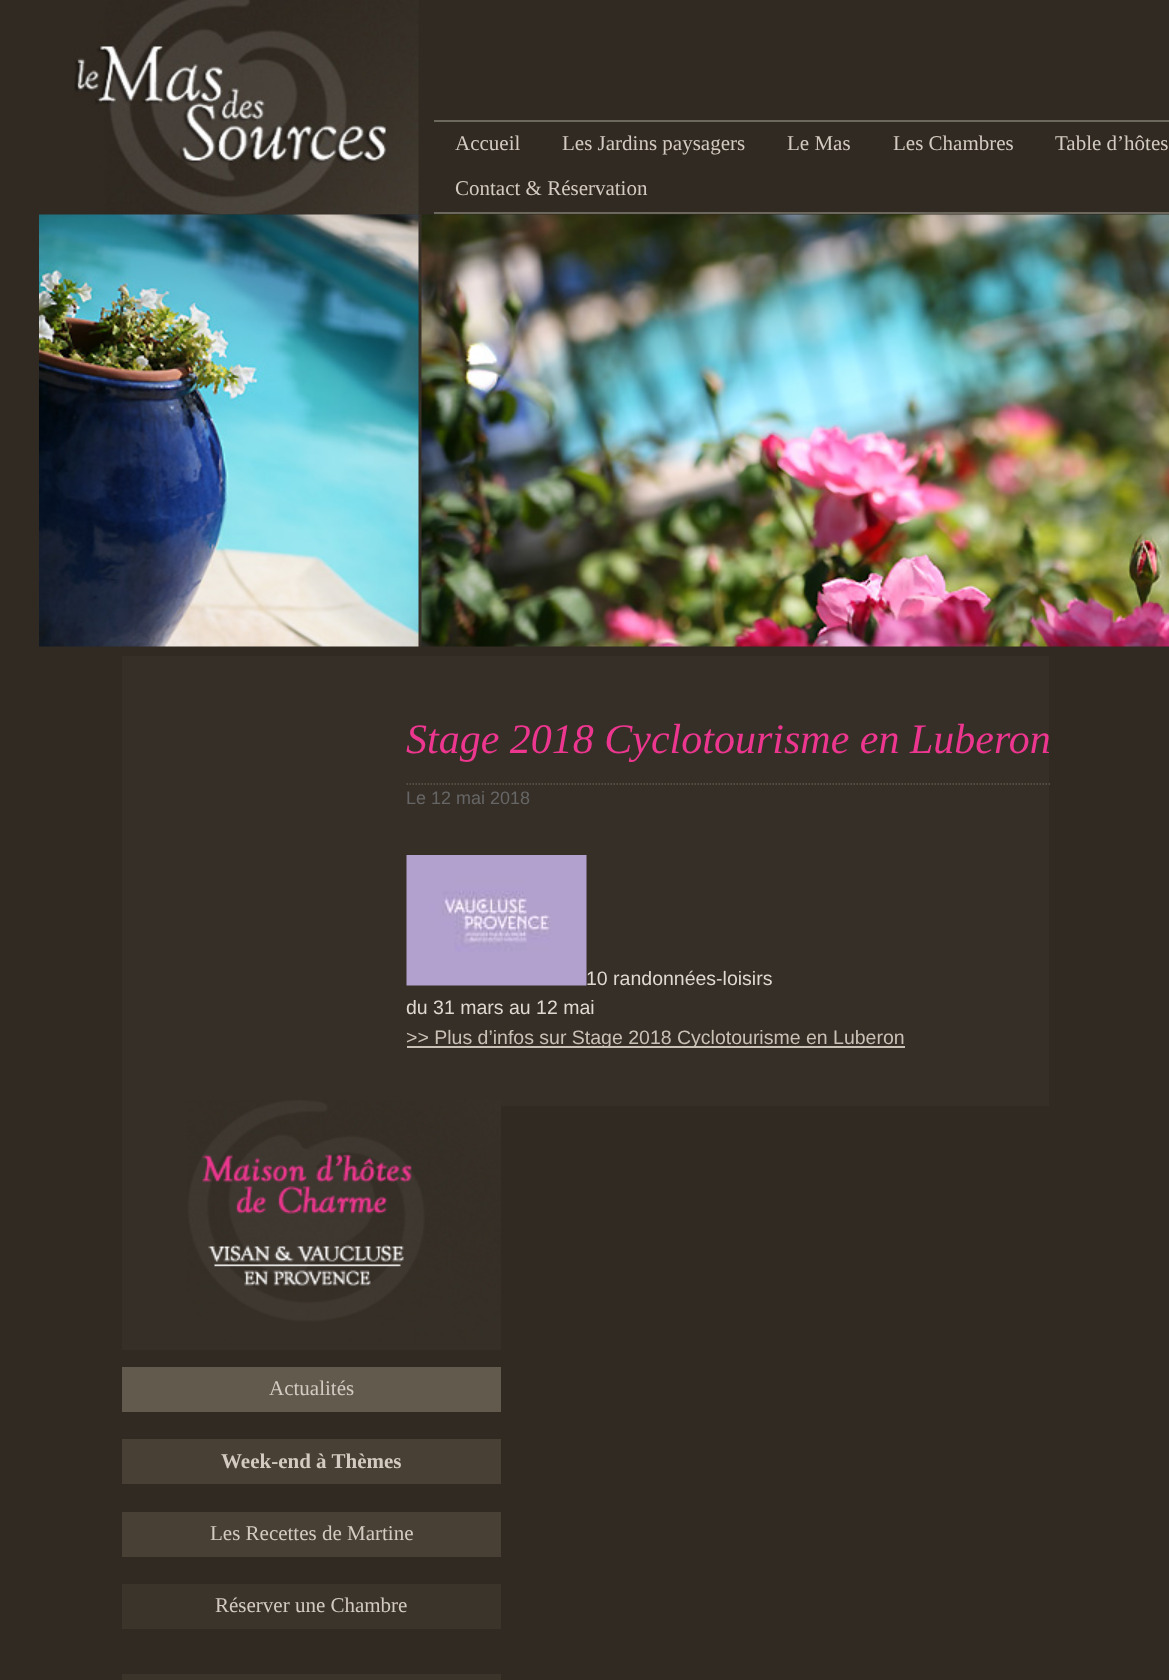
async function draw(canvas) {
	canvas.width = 1169;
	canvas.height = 1680;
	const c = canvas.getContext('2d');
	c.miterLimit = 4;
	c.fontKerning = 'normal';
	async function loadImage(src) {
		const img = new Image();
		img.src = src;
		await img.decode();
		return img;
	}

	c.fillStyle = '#312a22';
	c.fillRect(0, 0, 1169, 1680);
	c.drawImage(await loadImage('img1.png'), 74, 0, 345, 215);
	c.fillStyle = '#6c685d';
	c.fillRect(434, 120, 735, 2);
	c.fillRect(434, 212, 735, 2);
	c.font = '21px Liberation Serif';
	c.fillStyle = '#d3cbc1';
	for (const [text, x, y] of [
		['Accueil', 455, 150],
		['Les Jardins paysagers', 562, 150],
		['Le Mas', 787, 150],
		['Les Chambres', 893, 150],
		['Table d’hôtes', 1055, 150],
		['Contact & Réservation', 455, 195],
	]) {
		c.fillText(text, x, y);
	}
	c.drawImage(await loadImage('img2.png'), 39, 214, 1130, 433);
	c.fillStyle = '#362f27';
	c.fillRect(122, 656, 927, 450);
	c.beginPath();
	c.moveTo(406.5, 784);
	c.lineTo(1050, 784);
	c.strokeStyle = '#61584d';
	c.lineWidth = 1.5;
	c.setLineDash([1.5, 1.5]);
	c.stroke();
	c.font = 'italic 42px Liberation Serif';
	c.fillStyle = '#ed368f';
	c.fillText('Stage 2018 Cyclotourisme en Luberon', 406, 753);
	c.font = '18px Liberation Sans';
	c.fillStyle = '#666';
	c.fillText('Le 12 mai 2018', 406, 804);
	c.drawImage(await loadImage('img3.png'), 406, 855, 181, 131);
	c.font = '19.5px Liberation Sans';
	c.fillStyle = '#dfd9d1';
	c.fillText('10 randonnées-loisirs', 586, 985);
	c.fillText('du 31 mars au 12 mai', 406, 1014);
	c.fillStyle = '#cac1b6';
	c.fillRect(407, 1046, 498, 2);
	c.fillText('>> Plus d’infos sur Stage 2018 Cyclotourisme en Luberon', 406, 1044);
	c.drawImage(await loadImage('img4.png'), 122, 1100, 379, 250);
	c.fillStyle = '#635a4e';
	c.fillRect(122, 1367, 379, 45);
	c.font = '21px Liberation Serif';
	c.fillStyle = '#d3cbc1';
	c.fillText('Actualités', 269, 1395);
	c.fillStyle = '#484035';
	c.fillRect(122, 1439, 379, 45);
	c.font = 'bold 21px Liberation Serif';
	c.fillStyle = '#d3cbc1';
	c.fillText('Week-end à Thèmes', 221, 1468);
	c.fillStyle = '#484035';
	c.fillRect(122, 1512, 379, 45);
	c.font = '21px Liberation Serif';
	c.fillStyle = '#d3cbc1';
	c.fillText('Les Recettes de Martine', 210, 1540);
	c.fillStyle = '#3b342a';
	c.fillRect(122, 1584, 379, 45);
	c.fillStyle = '#d3cbc1';
	c.fillText('Réserver une Chambre', 215, 1612);
	c.fillStyle = '#3b342a';
	c.fillRect(122, 1674, 379, 6);
}

draw(document.querySelector('canvas'));
